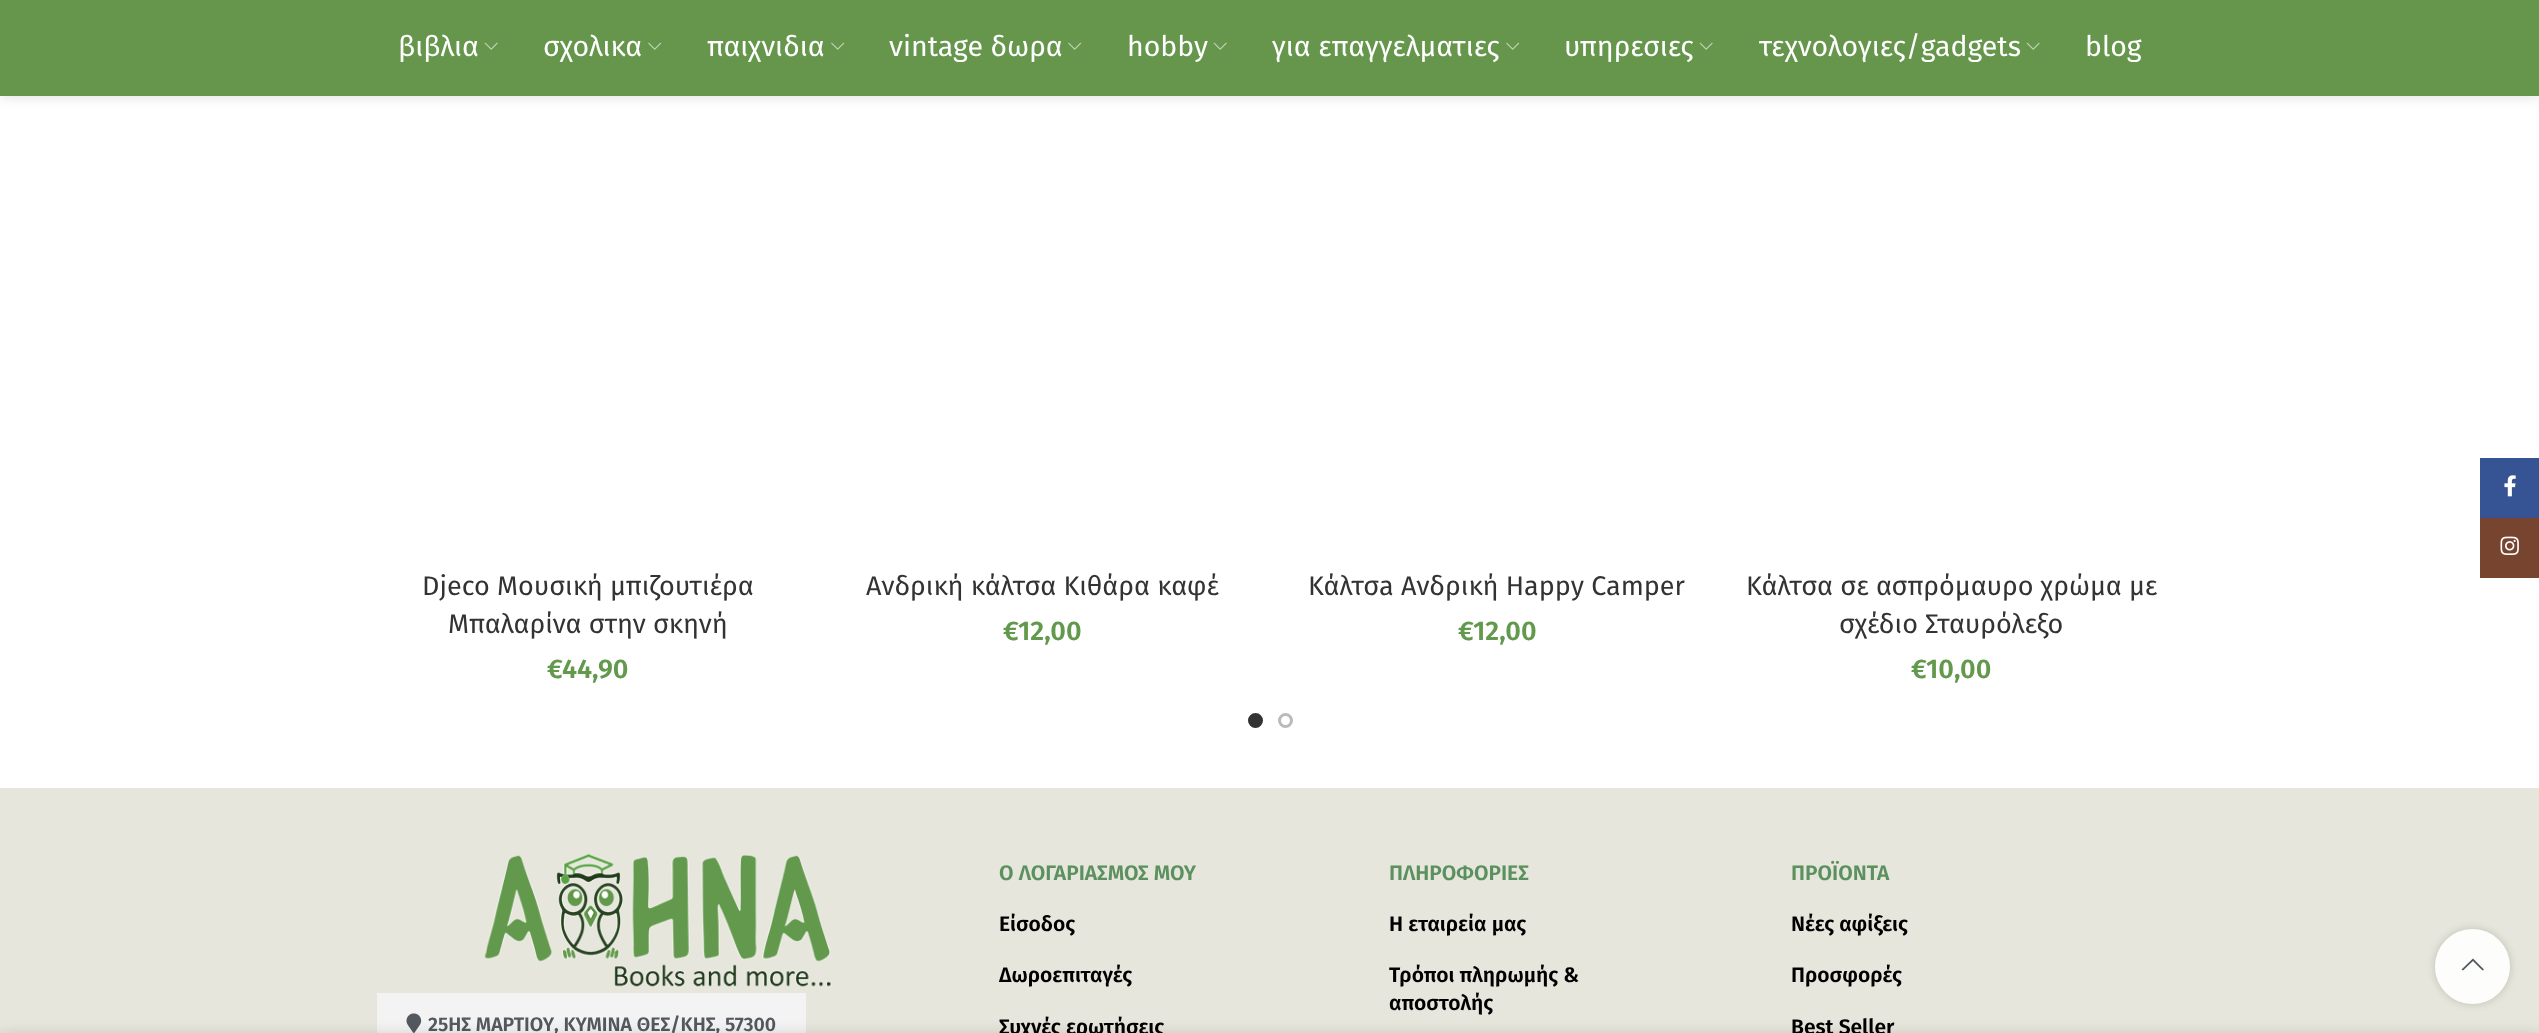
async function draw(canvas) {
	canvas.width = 2539;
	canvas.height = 1033;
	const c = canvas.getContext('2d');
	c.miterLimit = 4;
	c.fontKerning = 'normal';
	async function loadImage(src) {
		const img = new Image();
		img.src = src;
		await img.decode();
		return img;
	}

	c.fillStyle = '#fff';
	c.fillRect(0, 0, 2539, 1033);
	c.fillStyle = '#0000001a';
	c.filter = 'blur(6px)';
	c.beginPath();
	c.rect(0, 2, 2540, 96);
	c.fill();
	c.filter = 'none';
	c.fillStyle = '#65964c';
	c.fillRect(0, 0, 2539, 96);
	c.font = '28.5px Fira Sans';
	c.fillStyle = '#fff';
	c.fillText('βιβλια', 398, 56);
	c.drawImage(await loadImage('img1.png'), 484, 42, 14, 8);
	c.fillText('σχολικα', 543, 56);
	c.drawImage(await loadImage('img2.png'), 648, 42, 14, 8);
	c.fillText('παιχνιδια', 707, 56);
	c.drawImage(await loadImage('img2.png'), 831, 42, 14, 8);
	c.fillText('vintage δωρα', 889, 56);
	c.drawImage(await loadImage('img2.png'), 1068, 42, 14, 8);
	c.fillText('hobby', 1127, 56);
	c.drawImage(await loadImage('img1.png'), 1213, 42, 14, 8);
	c.fillText('για επαγγελματιες', 1272, 56);
	c.drawImage(await loadImage('img2.png'), 1506, 42, 14, 8);
	c.fillText('υπηρεσιες', 1564, 56);
	c.drawImage(await loadImage('img1.png'), 1699, 42, 14, 8);
	c.fillText('τεχνολογιες/gadgets', 1759, 56);
	c.drawImage(await loadImage('img1.png'), 2026, 42, 14, 8);
	c.fillText('blog', 2085, 56);
	c.font = '27px Fira Sans';
	c.fillStyle = '#333';
	c.fillText('Djeco Μουσική μπιζουτιέρα', 422, 595);
	c.fillText('Μπαλαρίνα στην σκηνή', 448, 633);
	c.font = '600 27px Fira Sans';
	c.fillStyle = '#63994c';
	c.fillText('€', 547, 678);
	c.fillText('44,90', 562, 678);
	c.font = '27px Fira Sans';
	c.fillStyle = '#333';
	c.fillText('Ανδρική κάλτσα Κιθάρα καφέ', 866, 595);
	c.font = '600 27px Fira Sans';
	c.fillStyle = '#63994c';
	c.fillText('€', 1003, 640);
	c.fillText('12,00', 1018, 640);
	c.font = '27px Fira Sans';
	c.fillStyle = '#333';
	c.fillText('Κάλτσa Ανδρική Happy Camper', 1308, 595);
	c.font = '600 27px Fira Sans';
	c.fillStyle = '#63994c';
	c.fillText('€', 1458, 640);
	c.fillText('12,00', 1473, 640);
	c.font = '27px Fira Sans';
	c.fillStyle = '#333';
	c.fillText('Κάλτσα σε ασπρόμαυρο χρώμα με', 1746, 595);
	c.fillText('σχέδιο Σταυρόλεξο', 1839, 633);
	c.font = '600 27px Fira Sans';
	c.fillStyle = '#63994c';
	c.fillText('€', 1911, 678);
	c.fillText('10,00', 1926, 678);
	c.fillStyle = '#333';
	c.beginPath();
	c.arc(1255.5, 720.5, 6, 0, 2 * Math.PI);
	c.fill();
	c.strokeStyle = '#333';
	c.lineWidth = 3;
	c.stroke();
	c.beginPath();
	c.arc(1285.5, 720.5, 6, 0, 2 * Math.PI);
	c.strokeStyle = '#bbb';
	c.stroke();
	c.fillStyle = '#e7e6dc';
	c.fillRect(0, 788, 2539, 245);
	c.font = '600 21px Fira Sans';
	c.fillStyle = '#5b915f';
	c.fillText('Ο ΛΟΓΑΡΙΑΣΜΟΣ ΜΟΥ', 999, 880);
	c.fillStyle = '#000';
	for (const [text, x, y] of [
		['Είσοδος', 999, 931],
		['Δωροεπιταγές', 999, 982],
		['Συχνές ερωτήσεις', 999, 1034],
	]) {
		c.fillText(text, x, y);
	}
	c.fillStyle = '#5b915f';
	c.fillText('ΠΛΗΡΟΦΟΡΙΕΣ', 1389, 880);
	c.fillStyle = '#000';
	for (const [text, x, y] of [
		['Η εταιρεία μας', 1389, 931],
		['Τρόποι πληρωμής &', 1389, 982],
		['αποστολής', 1389, 1010],
	]) {
		c.fillText(text, x, y);
	}
	c.fillStyle = '#5b915f';
	c.fillText('ΠΡΟΪΟΝΤΑ', 1791, 880);
	c.fillStyle = '#000';
	for (const [text, x, y] of [
		['Νέες αφίξεις', 1791, 931],
		['Προσφορές', 1791, 982],
		['Best Seller', 1791, 1034],
	]) {
		c.fillText(text, x, y);
	}
	c.drawImage(await loadImage('img3.png'), 484, 853, 348, 135);
	c.fillStyle = '#f3f3f3';
	c.fillRect(377, 993, 429, 40);
	c.drawImage(await loadImage('img4.png'), 406, 1013, 16, 20);
	c.font = '600 19.5px Fira Sans';
	c.fillStyle = '#54595f';
	c.fillText('25ΗΣ ΜΑΡΤΙΟΥ, ΚΥΜΙΝΑ ΘΕΣ/ΚΗΣ, 57300', 428, 1031);
	c.fillStyle = '#365493';
	c.fillRect(2480, 458, 59, 60);
	c.drawImage(await loadImage('img5.png'), 2504, 475, 12, 22);
	c.fillStyle = '#774430';
	c.fillRect(2480, 518, 59, 60);
	c.drawImage(await loadImage('img6.png'), 2500, 536, 19, 19);
	c.save();
	c.beginPath();
	c.moveTo(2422, 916);
	c.lineTo(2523, 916);
	c.lineTo(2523, 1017);
	c.lineTo(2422, 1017);
	c.closePath();
	c.moveTo(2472.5, 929);
	c.bezierCurveTo(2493, 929, 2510, 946, 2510, 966.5);
	c.bezierCurveTo(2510, 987, 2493, 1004, 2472.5, 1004);
	c.bezierCurveTo(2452, 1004, 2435, 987, 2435, 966.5);
	c.bezierCurveTo(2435, 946, 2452, 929, 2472.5, 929);
	c.closePath();
	c.clip('evenodd');
	c.fillStyle = '#0000002b';
	c.filter = 'blur(4px)';
	c.beginPath();
	c.roundRect(2435, 929, 75, 75, 37.5);
	c.fill();
	c.filter = 'none';
	c.restore();
	c.fillStyle = '#ffffffe6';
	c.beginPath();
	c.arc(2472.5, 966.5, 37.5, 0, 2 * Math.PI);
	c.fill();
	c.fillStyle = '#54595f';
	c.beginPath();
	c.moveTo(2482.5, 970.5);
	c.lineTo(2484, 969.5);
	c.lineTo(2473, 958.5);
	c.lineTo(2461.5, 969.5);
	c.lineTo(2463, 970.5);
	c.lineTo(2473, 961);
	c.closePath();
	c.fill();
	c.fillStyle = '#00000024';
	c.filter = 'blur(7px)';
	c.beginPath();
	c.rect(0, 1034, 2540, 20);
	c.fill();
	c.filter = 'none';
}

draw(document.querySelector('canvas'));
